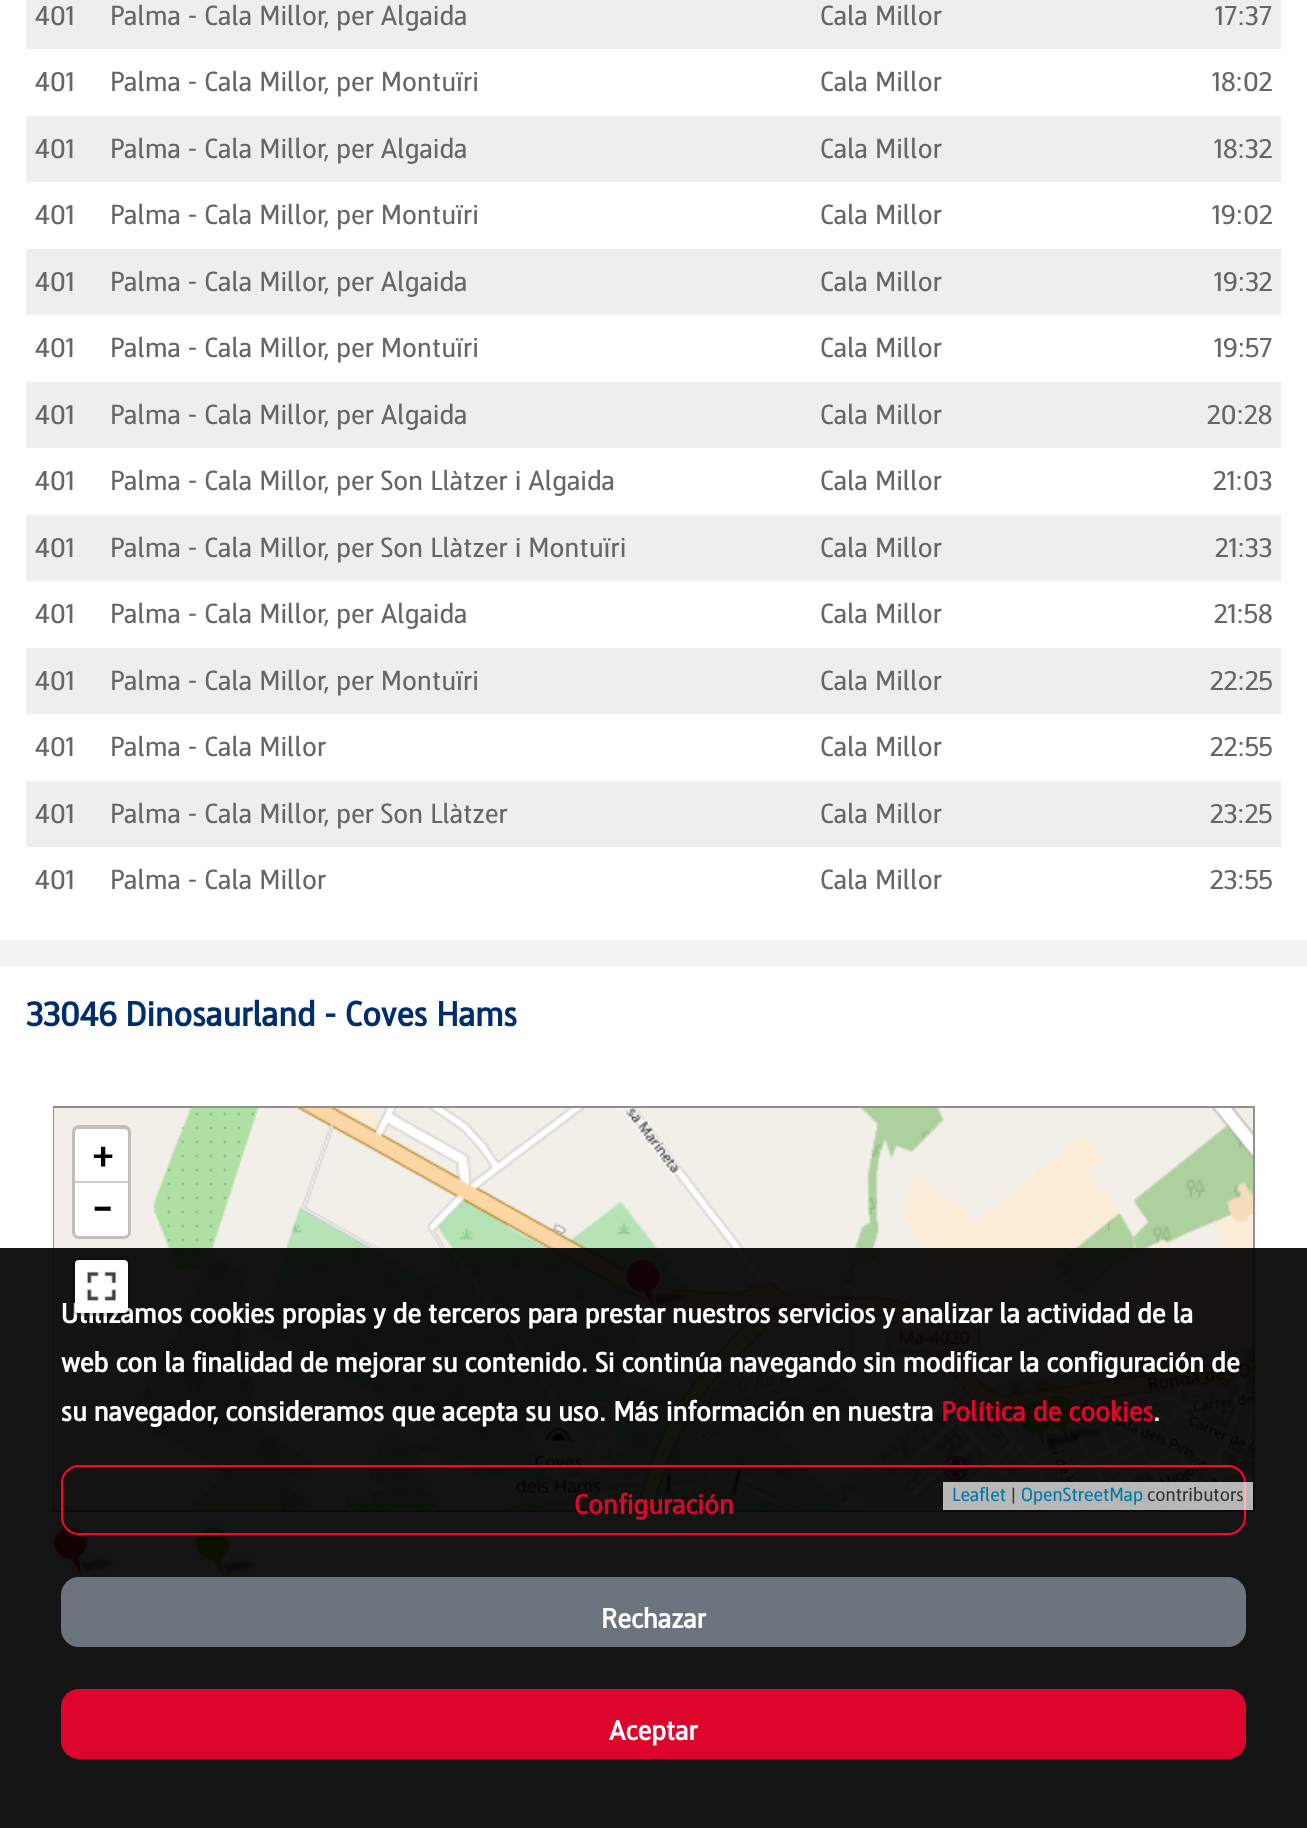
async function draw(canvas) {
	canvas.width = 1307;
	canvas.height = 1828;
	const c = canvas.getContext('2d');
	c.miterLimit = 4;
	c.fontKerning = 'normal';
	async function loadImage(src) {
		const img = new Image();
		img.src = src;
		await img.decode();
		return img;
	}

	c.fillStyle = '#f2f2f2';
	c.fillRect(0, 0, 1307, 1828);
	c.fillStyle = '#fff';
	c.fillRect(0, 0, 1307, 940);
	c.fillStyle = '#eee';
	c.fillRect(26, 0, 1255, 49);
	c.font = '28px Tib';
	c.fillStyle = '#666';
	for (const [text, x, y] of [
		['401', 35, 25],
		['Palma - Cala Millor, per Algaida', 110, 25],
		['Cala Millor', 820, 25],
		['17:37', 1215, 25],
		['401', 35, 91],
		['Palma - Cala Millor, per Montuïri', 110, 91],
		['Cala Millor', 820, 91],
		['18:02', 1212, 91],
	]) {
		c.fillText(text, x, y);
	}
	c.fillStyle = '#eee';
	c.fillRect(26, 116, 1255, 66);
	c.fillStyle = '#666';
	for (const [text, x, y] of [
		['401', 35, 158],
		['Palma - Cala Millor, per Algaida', 110, 158],
		['Cala Millor', 820, 158],
		['18:32', 1214, 158],
		['401', 35, 224],
		['Palma - Cala Millor, per Montuïri', 110, 224],
		['Cala Millor', 820, 224],
		['19:02', 1212, 224],
	]) {
		c.fillText(text, x, y);
	}
	c.fillStyle = '#eee';
	c.fillRect(26, 249, 1255, 66);
	c.fillStyle = '#666';
	for (const [text, x, y] of [
		['401', 35, 291],
		['Palma - Cala Millor, per Algaida', 110, 291],
		['Cala Millor', 820, 291],
		['19:32', 1214, 291],
		['401', 35, 357],
		['Palma - Cala Millor, per Montuïri', 110, 357],
		['Cala Millor', 820, 357],
		['19:57', 1214, 357],
	]) {
		c.fillText(text, x, y);
	}
	c.fillStyle = '#eee';
	c.fillRect(26, 382, 1255, 66);
	c.fillStyle = '#666';
	for (const [text, x, y] of [
		['401', 35, 424],
		['Palma - Cala Millor, per Algaida', 110, 424],
		['Cala Millor', 820, 424],
		['20:28', 1207, 424],
		['401', 35, 490],
		['Palma - Cala Millor, per Son Llàtzer i Algaida', 110, 490],
		['Cala Millor', 820, 490],
		['21:03', 1213, 490],
	]) {
		c.fillText(text, x, y);
	}
	c.fillStyle = '#eee';
	c.fillRect(26, 515, 1255, 66);
	c.fillStyle = '#666';
	for (const [text, x, y] of [
		['401', 35, 557],
		['Palma - Cala Millor, per Son Llàtzer i Montuïri', 110, 557],
		['Cala Millor', 820, 557],
		['21:33', 1215, 557],
		['401', 35, 623],
		['Palma - Cala Millor, per Algaida', 110, 623],
		['Cala Millor', 820, 623],
		['21:58', 1214, 623],
	]) {
		c.fillText(text, x, y);
	}
	c.fillStyle = '#eee';
	c.fillRect(26, 648, 1255, 66);
	c.fillStyle = '#666';
	for (const [text, x, y] of [
		['401', 35, 690],
		['Palma - Cala Millor, per Montuïri', 110, 690],
		['Cala Millor', 820, 690],
		['22:25', 1210, 690],
		['401', 35, 756],
		['Palma - Cala Millor', 110, 756],
		['Cala Millor', 820, 756],
		['22:55', 1210, 756],
	]) {
		c.fillText(text, x, y);
	}
	c.fillStyle = '#eee';
	c.fillRect(26, 781, 1255, 66);
	c.fillStyle = '#666';
	for (const [text, x, y] of [
		['401', 35, 823],
		['Palma - Cala Millor, per Son Llàtzer', 110, 823],
		['Cala Millor', 820, 823],
		['23:25', 1210, 823],
		['401', 35, 889],
		['Palma - Cala Millor', 110, 889],
		['Cala Millor', 820, 889],
		['23:55', 1210, 889],
	]) {
		c.fillText(text, x, y);
	}
	c.fillStyle = '#fff';
	c.fillRect(0, 966, 1307, 862);
	c.font = 'bold 35px Tib';
	c.fillStyle = '#002e6d';
	c.fillText('33046 Dinosaurland - Coves Hams', 26, 1026);
	c.strokeStyle = '#918f90';
	c.lineWidth = 2;
	c.strokeRect(54, 1107, 1200, 404);
	c.drawImage(await loadImage('img1.png'), 54, 1108, 433, 295);
	c.drawImage(await loadImage('img2.png'), 487, 1108, 448, 295);
	c.drawImage(await loadImage('img3.png'), 935, 1108, 318, 295);
	c.drawImage(await loadImage('img4.png'), 54, 1403, 433, 107);
	c.drawImage(await loadImage('img5.png'), 487, 1403, 448, 107);
	c.drawImage(await loadImage('img6.png'), 935, 1403, 318, 107);
	c.drawImage(await loadImage('img7.png'), 624, 1258, 62, 52);
	c.drawImage(await loadImage('img8.png'), 1039, 1393, 62, 51);
	c.drawImage(await loadImage('img9.png'), 1016, 1400, 62, 51);
	c.beginPath();
	c.roundRect(74, 1127, 55, 110, 5);
	c.strokeStyle = '#c2bfba';
	c.lineWidth = 4;
	c.stroke();
	c.fillStyle = '#fff';
	c.beginPath();
	c.roundRect(75, 1129, 53, 54, [4, 4, 0, 0]);
	c.fill();
	c.fillStyle = '#ccc';
	c.fillRect(75, 1181, 53, 2);
	c.font = 'bold 38px Tib';
	c.fillStyle = '#000';
	c.fillText('+', 92, 1167);
	c.fillStyle = '#fff';
	c.beginPath();
	c.roundRect(75, 1183, 53, 53, [0, 0, 4, 4]);
	c.fill();
	c.font = 'bold 38px Roboto';
	c.fillStyle = '#000';
	c.fillText('−', 92, 1222);
	c.drawImage(await loadImage('img11.png'), 53, 1527, 61, 49);
	c.drawImage(await loadImage('img12.png'), 195, 1527, 61, 50);
	c.fillStyle = '#000000eb';
	c.fillRect(0, 1248, 1307, 580);
	c.font = 'bold 28px Tib';
	c.fillStyle = '#fff';
	c.fillText('Utilizamos cookies propias y de terceros para prestar nuestros servicios y analizar la actividad de la', 61, 1323);
	c.beginPath();
	c.roundRect(74, 1259, 55, 55, 5);
	c.strokeStyle = '#00000033';
	c.stroke();
	c.beginPath();
	c.roundRect(75, 1260, 53, 53, 4);
	c.fill();
	c.drawImage(await loadImage('img10.png'), 87, 1271, 29, 30);
	c.beginPath();
	c.roundRect(62, 1466, 1183, 68, 17);
	c.strokeStyle = '#ff0230';
	c.lineWidth = 2;
	c.stroke();
	c.fillStyle = '#ffffffb3';
	c.fillRect(943, 1482, 310, 28);
	c.font = '19.25px Tib';
	c.fillStyle = '#0078a8';
	c.fillText('Leaflet', 952, 1501);
	c.fillStyle = '#333';
	c.fillText('|', 1011, 1501);
	c.fillStyle = '#0078a8';
	c.fillText('OpenStreetMap', 1021, 1501);
	c.fillStyle = '#333';
	c.fillText('contributors', 1147, 1501);
	c.font = 'bold 28px Tib';
	c.fillStyle = '#fff';
	c.fillText('web con la finalidad de mejorar su contenido. Si continúa navegando sin modificar la configuración de', 61, 1372);
	c.fillText('su navegador, consideramos que acepta su uso. Más información en nuestra', 61, 1421);
	c.fillStyle = '#dd052b';
	c.fillText('Política de cookies', 941, 1421);
	c.fillStyle = '#fff';
	c.fillText('.', 1153, 1421);
	c.fillStyle = '#dd052b';
	c.fillText('Configuración', 574, 1514);
	c.fillStyle = '#6c757d';
	c.beginPath();
	c.roundRect(61, 1577, 1185, 70, 18);
	c.fill();
	c.fillStyle = '#fff';
	c.fillText('Rechazar', 601, 1628);
	c.fillStyle = '#dd052b';
	c.beginPath();
	c.roundRect(61, 1689, 1185, 70, 18);
	c.fill();
	c.fillStyle = '#fff';
	c.fillText('Aceptar', 609, 1740);
}

draw(document.querySelector('canvas'));
